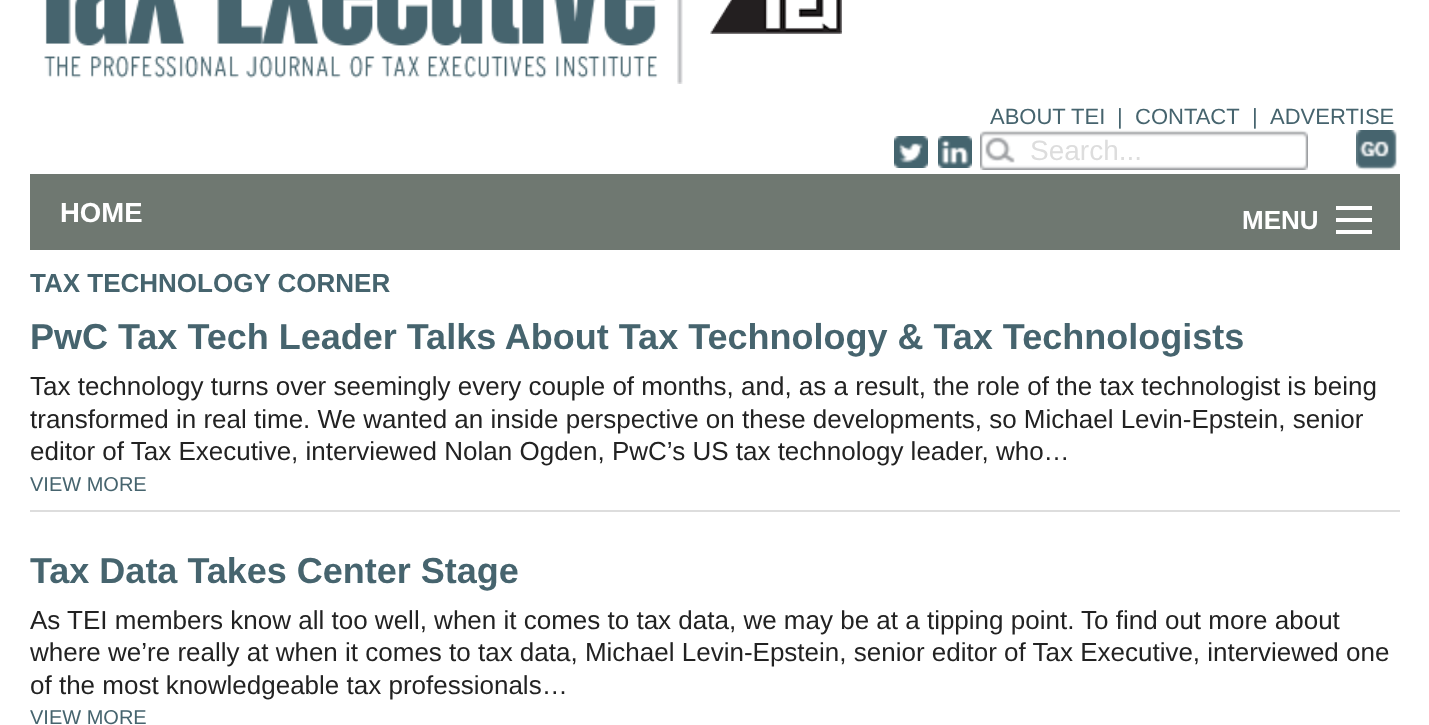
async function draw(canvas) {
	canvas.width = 1429;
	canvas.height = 725;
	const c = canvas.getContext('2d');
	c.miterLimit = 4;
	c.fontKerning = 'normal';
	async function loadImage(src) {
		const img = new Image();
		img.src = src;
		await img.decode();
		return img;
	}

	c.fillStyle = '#fff';
	c.fillRect(0, 0, 1429, 725);
	c.drawImage(await loadImage('img1.png'), 44, 0, 639, 84);
	c.drawImage(await loadImage('img2.png'), 710, 0, 132, 34);
	c.drawImage(await loadImage('img3.png'), 894, 136, 34, 32);
	c.drawImage(await loadImage('img4.png'), 938, 136, 34, 32);
	c.font = '22px Liberation Sans';
	c.fillStyle = '#46646e';
	for (const [text, x, y] of [
		['ABOUT TEI', 990, 124],
		['|', 1117, 124],
		['CONTACT', 1135, 124],
		['|', 1252, 124],
		['ADVERTISE', 1270, 124],
	]) {
		c.fillText(text, x, y);
	}
	c.drawImage(await loadImage('img5.png'), 980, 130, 328, 40);
	c.font = '28px Liberation Sans';
	c.fillStyle = '#ddd';
	c.fillText('Search...', 1030, 160);
	c.drawImage(await loadImage('img6.png'), 1356, 130, 41, 40);
	c.fillStyle = '#6f7871';
	c.fillRect(30, 174, 1370, 76);
	c.font = 'bold 27.5px Liberation Sans';
	c.fillStyle = '#fff';
	c.fillText('HOME', 60, 222);
	for (const [x, y, w, h, color] of [
		[1336, 230, 36, 4, '#fff'],
		[1336, 218, 36, 4, '#fff'],
		[1336, 206, 36, 4, '#fff'],
	]) {
		c.fillStyle = color;
		c.fillRect(x, y, w, h);
	}
	c.font = 'bold 26px Liberation Sans';
	c.fillText('MENU', 1242, 229);
	c.fillStyle = '#46646e';
	c.fillText('TAX TECHNOLOGY CORNER', 30, 292);
	c.font = 'bold 36px Liberation Sans';
	c.fillText('PwC Tax Tech Leader Talks About Tax Technology & Tax Technologists', 30, 349);
	c.font = '26px Liberation Sans';
	c.fillStyle = '#222';
	for (const [text, x, y] of [
		['Tax technology turns over seemingly every couple of months, and, as a result, the role of the tax technologist is being', 30, 395],
		['transformed in real time. We wanted an inside perspective on these developments, so Michael Levin-Epstein, senior', 30, 428],
		['editor of Tax Executive, interviewed Nolan Ogden, PwC’s US tax technology leader, who…', 30, 460],
	]) {
		c.fillText(text, x, y);
	}
	c.font = '20px Liberation Sans';
	c.fillStyle = '#46646e';
	c.fillText('VIEW MORE', 30, 491);
	c.fillStyle = '#ddd';
	c.fillRect(30, 510, 1370, 2);
	c.font = 'bold 36px Liberation Sans';
	c.fillStyle = '#46646e';
	c.fillText('Tax Data Takes Center Stage', 30, 583);
	c.font = '26px Liberation Sans';
	c.fillStyle = '#222';
	for (const [text, x, y] of [
		['As TEI members know all too well, when it comes to tax data, we may be at a tipping point. To find out more about', 30, 629],
		['where we’re really at when it comes to tax data, Michael Levin-Epstein, senior editor of Tax Executive, interviewed one', 30, 661],
		['of the most knowledgeable tax professionals…', 30, 694],
	]) {
		c.fillText(text, x, y);
	}
	c.font = '20px Liberation Sans';
	c.fillStyle = '#46646e';
	c.fillText('VIEW MORE', 30, 724);
}

draw(document.querySelector('canvas'));
